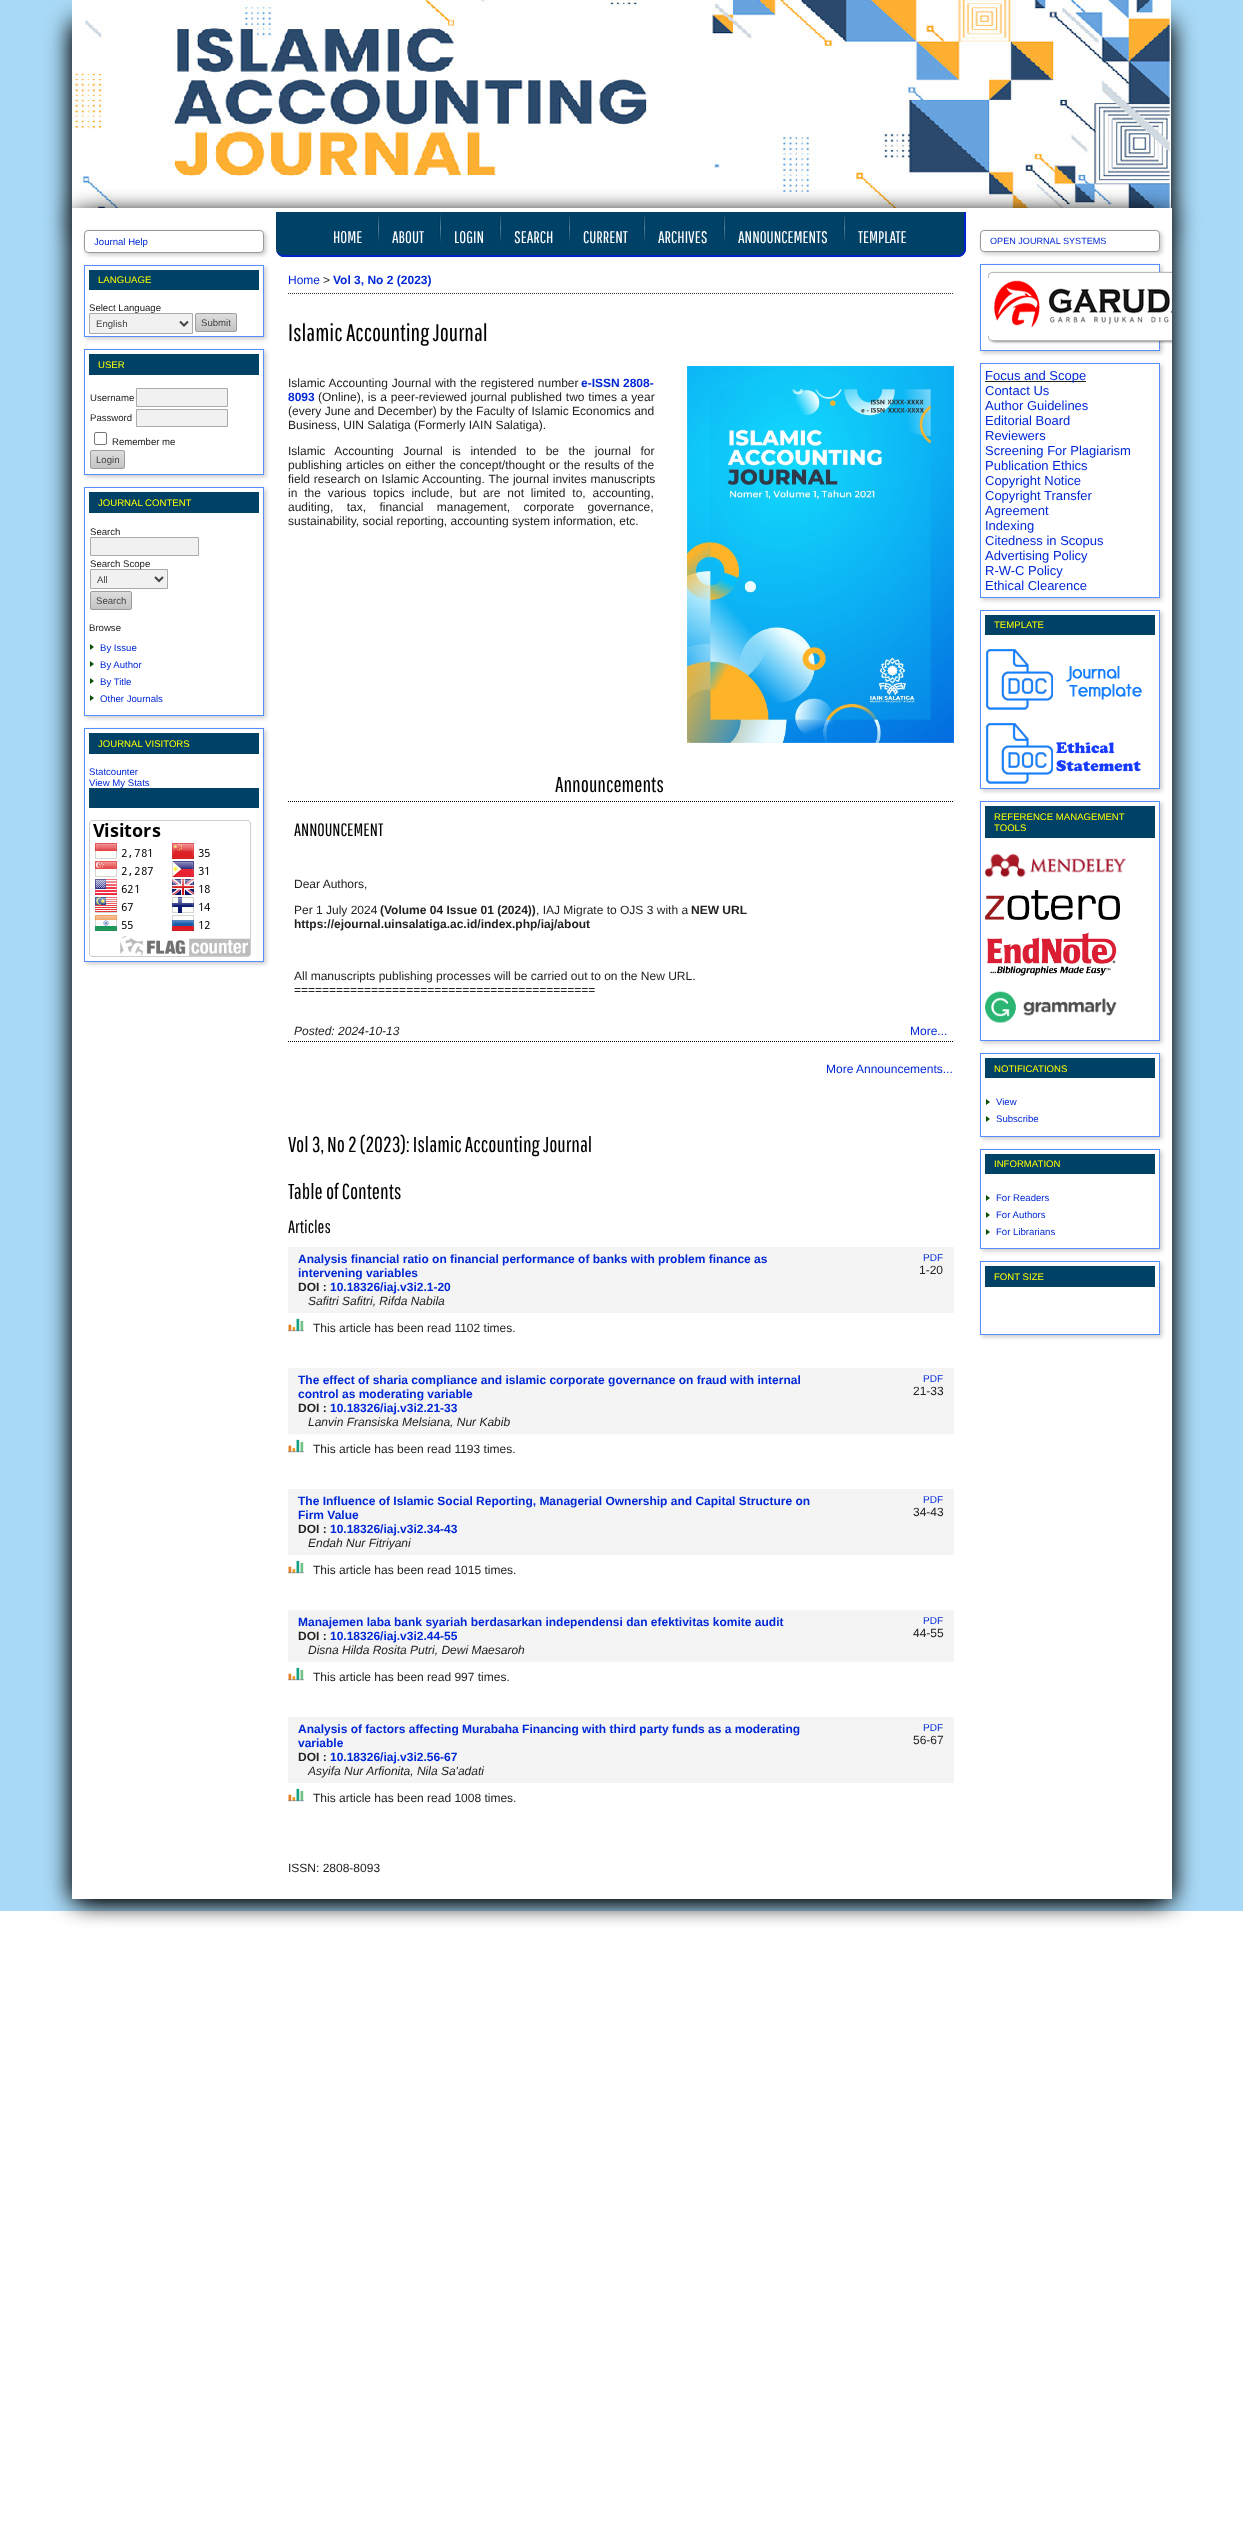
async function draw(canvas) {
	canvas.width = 1243;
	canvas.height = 2522;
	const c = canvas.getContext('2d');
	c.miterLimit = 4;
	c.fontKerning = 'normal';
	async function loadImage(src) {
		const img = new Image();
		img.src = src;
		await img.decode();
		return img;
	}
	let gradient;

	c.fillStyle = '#fff';
	c.fillRect(0, 0, 1243, 2522);
	c.fillStyle = '#a8d9f6';
	c.fillRect(0, 0, 1243, 1911);
	c.fillStyle = '#000';
	c.filter = 'blur(12.5px)';
	c.beginPath();
	c.rect(81, 24, 1091, 200);
	c.fill();
	c.filter = 'none';
	c.filter = 'blur(12.5px)';
	c.beginPath();
	c.rect(71, 24, 1091, 200);
	c.fill();
	c.filter = 'none';
	c.drawImage(await loadImage('img1.png'), 72, 0, 1099, 208);
	c.filter = 'blur(12.5px)';
	c.beginPath();
	c.rect(81, 217, 1092, 1683);
	c.fill();
	c.filter = 'none';
	c.filter = 'blur(12.5px)';
	c.beginPath();
	c.rect(71, 217, 1092, 1683);
	c.fill();
	c.filter = 'none';
	c.fillStyle = '#fff';
	c.fillRect(72, 208, 1100, 1691);
	c.fillStyle = '#004167';
	c.beginPath();
	c.roundRect(276, 212, 690, 45, [0, 0, 8, 8]);
	c.fill();
	c.fillStyle = '#0022cd';
	c.beginPath();
	c.moveTo(276, 212);
	c.lineTo(966, 212);
	c.lineTo(966, 249);
	c.bezierCurveTo(966, 253, 962, 257, 958, 257);
	c.lineTo(284, 257);
	c.bezierCurveTo(280, 257, 276, 253, 276, 249);
	c.closePath();
	c.moveTo(276, 212);
	c.lineTo(964, 212);
	c.lineTo(964, 249);
	c.bezierCurveTo(964, 252, 961, 255, 958, 255);
	c.lineTo(284, 255);
	c.bezierCurveTo(280, 255, 276, 252, 276, 249);
	c.closePath();
	c.fill('evenodd');
	c.font = '16.75px Pathway Gothic One';
	c.fillStyle = '#fff';
	c.fillText('HOME', 333, 243);
	gradient = c.createLinearGradient(378, 213, 378, 243);
	gradient.addColorStop(0, '#004167');
	gradient.addColorStop(0.5, '#003758');
	gradient.addColorStop(1, '#004167');
	c.fillStyle = gradient;
	c.fillRect(377, 213, 1, 30);
	gradient = c.createLinearGradient(379, 213, 379, 243);
	gradient.addColorStop(0, '#004167');
	gradient.addColorStop(0.5, '#59849c');
	gradient.addColorStop(1, '#004167');
	c.fillStyle = gradient;
	c.fillRect(378, 213, 1, 30);
	c.fillStyle = '#fff';
	c.fillText('ABOUT', 392, 243);
	gradient = c.createLinearGradient(440, 213, 440, 243);
	gradient.addColorStop(0, '#004167');
	gradient.addColorStop(0.5, '#003758');
	gradient.addColorStop(1, '#004167');
	c.fillStyle = gradient;
	c.fillRect(439, 213, 1, 30);
	gradient = c.createLinearGradient(441, 213, 441, 243);
	gradient.addColorStop(0, '#004167');
	gradient.addColorStop(0.5, '#59849c');
	gradient.addColorStop(1, '#004167');
	c.fillStyle = gradient;
	c.fillRect(440, 213, 1, 30);
	c.fillStyle = '#fff';
	c.fillText('LOGIN', 454, 243);
	gradient = c.createLinearGradient(500, 213, 500, 243);
	gradient.addColorStop(0, '#004167');
	gradient.addColorStop(0.5, '#003758');
	gradient.addColorStop(1, '#004167');
	c.fillStyle = gradient;
	c.fillRect(499, 213, 1, 30);
	gradient = c.createLinearGradient(501, 213, 501, 243);
	gradient.addColorStop(0, '#004167');
	gradient.addColorStop(0.5, '#59849c');
	gradient.addColorStop(1, '#004167');
	c.fillStyle = gradient;
	c.fillRect(500, 213, 1, 30);
	c.fillStyle = '#fff';
	c.fillText('SEARCH', 514, 243);
	gradient = c.createLinearGradient(569, 213, 569, 243);
	gradient.addColorStop(0, '#004167');
	gradient.addColorStop(0.5, '#003758');
	gradient.addColorStop(1, '#004167');
	c.fillStyle = gradient;
	c.fillRect(568, 213, 1, 30);
	gradient = c.createLinearGradient(570, 213, 570, 243);
	gradient.addColorStop(0, '#004167');
	gradient.addColorStop(0.5, '#59849c');
	gradient.addColorStop(1, '#004167');
	c.fillStyle = gradient;
	c.fillRect(569, 213, 1, 30);
	c.fillStyle = '#fff';
	c.fillText('CURRENT', 583, 243);
	gradient = c.createLinearGradient(644, 213, 644, 243);
	gradient.addColorStop(0, '#004167');
	gradient.addColorStop(0.5, '#003758');
	gradient.addColorStop(1, '#004167');
	c.fillStyle = gradient;
	c.fillRect(643, 213, 1, 30);
	gradient = c.createLinearGradient(645, 213, 645, 243);
	gradient.addColorStop(0, '#004167');
	gradient.addColorStop(0.5, '#59849c');
	gradient.addColorStop(1, '#004167');
	c.fillStyle = gradient;
	c.fillRect(644, 213, 1, 30);
	c.fillStyle = '#fff';
	c.fillText('ARCHIVES', 658, 243);
	gradient = c.createLinearGradient(724, 213, 724, 243);
	gradient.addColorStop(0, '#004167');
	gradient.addColorStop(0.5, '#003758');
	gradient.addColorStop(1, '#004167');
	c.fillStyle = gradient;
	c.fillRect(723, 213, 1, 30);
	gradient = c.createLinearGradient(725, 213, 725, 243);
	gradient.addColorStop(0, '#004167');
	gradient.addColorStop(0.5, '#59849c');
	gradient.addColorStop(1, '#004167');
	c.fillStyle = gradient;
	c.fillRect(724, 213, 1, 30);
	c.fillStyle = '#fff';
	c.fillText('ANNOUNCEMENTS', 738, 243);
	gradient = c.createLinearGradient(844, 213, 844, 243);
	gradient.addColorStop(0, '#004167');
	gradient.addColorStop(0.5, '#003758');
	gradient.addColorStop(1, '#004167');
	c.fillStyle = gradient;
	c.fillRect(843, 213, 1, 30);
	gradient = c.createLinearGradient(845, 213, 845, 243);
	gradient.addColorStop(0, '#004167');
	gradient.addColorStop(0.5, '#59849c');
	gradient.addColorStop(1, '#004167');
	c.fillStyle = gradient;
	c.fillRect(844, 213, 1, 30);
	c.fillStyle = '#fff';
	c.fillText('TEMPLATE', 858, 243);
	c.beginPath();
	c.moveTo(288, 293.5);
	c.lineTo(954, 293.5);
	c.strokeStyle = '#333';
	c.setLineDash([1, 1]);
	c.stroke();
	c.font = '12px Liberation Sans';
	c.fillStyle = '#0028d7';
	c.fillText('Home', 288, 284);
	c.fillStyle = '#222';
	c.fillText('>', 323, 284);
	c.font = 'bold 12px Liberation Sans';
	c.fillStyle = '#0028d7';
	c.fillText('Vol 3, No 2 (2023)', 333, 284);
	c.font = '24px Pathway Gothic One';
	c.fillStyle = '#000';
	c.fillText('Islamic Accounting Journal', 288, 341);
	c.wordSpacing = '0.5px';
	c.font = '12px Liberation Sans';
	c.fillStyle = '#222';
	c.fillText('Islamic Accounting Journal with the registered number', 288, 387);
	c.wordSpacing = '0px';
	c.font = 'bold 12px Liberation Sans';
	c.fillStyle = '#0028d7';
	for (const [text, x, y] of [
		['e-ISSN', 581, 387],
		['2808-', 623, 387],
		['8093', 288, 401],
	]) {
		c.fillText(text, x, y);
	}
	c.wordSpacing = '0.5px';
	c.font = '12px Liberation Sans';
	c.fillStyle = '#222';
	c.fillText('(Online), is a peer-reviewed journal published two times a year', 318, 401);
	c.wordSpacing = '0px';
	c.fillText('(every June and December) by the Faculty of Islamic Economics and', 288, 415);
	c.fillText('Business, UIN Salatiga (Formerly IAIN Salatiga).', 288, 429);
	c.wordSpacing = '6.25px';
	c.fillText('Islamic Accounting Journal is intended to be the journal for', 288, 455);
	c.wordSpacing = '0.6px';
	c.fillText('publishing articles on either the concept/thought or the results of the', 288, 469);
	c.wordSpacing = '0.5px';
	c.fillText('field research on Islamic Accounting. The journal invites manuscripts', 288, 483);
	c.wordSpacing = '3.5px';
	c.fillText('in the various topics include, but are not limited to, accounting,', 288, 497);
	c.wordSpacing = '10px';
	c.fillText('auditing, tax, financial management, corporate governance,', 288, 511);
	c.wordSpacing = '0px';
	c.fillText('sustainability, social reporting, accounting system information, etc.', 288, 525);
	c.drawImage(await loadImage('img2.png'), 687, 366, 267, 377);
	c.font = '21.6px Pathway Gothic One';
	c.fillStyle = '#000';
	c.fillText('Announcements', 555, 792);
	c.beginPath();
	c.moveTo(288, 801.5);
	c.lineTo(954, 801.5);
	c.strokeStyle = '#000';
	c.stroke();
	c.font = '18px Pathway Gothic One';
	c.fillText('ANNOUNCEMENT', 294, 836);
	c.font = '12px Liberation Sans';
	c.fillStyle = '#222';
	c.fillText('Dear Authors,', 294, 888);
	c.fillText('Per 1 July 2024', 294, 914);
	c.font = 'bold 12px Liberation Sans';
	c.fillText('(Volume 04 Issue 01 (2024))', 380, 914);
	c.font = '12px Liberation Sans';
	c.fillText(', IAJ Migrate to OJS 3 with a', 536, 914);
	c.font = 'bold 12px Liberation Sans';
	c.fillText('NEW URL', 691, 914);
	c.fillText('https://ejournal.uinsalatiga.ac.id/index.php/iaj/about', 294, 928);
	c.font = '12px Liberation Sans';
	c.fillText('All manuscripts publishing processes will be carried out to on the New URL.', 294, 980);
	c.fillText('===========================================', 294, 994);
	c.font = 'italic 12px Liberation Sans';
	c.fillText('Posted: 2024-10-13', 294, 1035);
	c.font = '12px Liberation Sans';
	c.fillStyle = '#0028d7';
	c.fillText('More...', 910, 1035);
	c.beginPath();
	c.moveTo(288, 1041.5);
	c.lineTo(954, 1041.5);
	c.stroke();
	c.fillText('More Announcements...', 826, 1073);
	c.font = '21.6px Pathway Gothic One';
	c.fillStyle = '#000';
	c.fillText('Vol 3, No 2 (2023): Islamic Accounting Journal', 288, 1152);
	c.fillText('Table of Contents', 288, 1199);
	c.font = '18px Pathway Gothic One';
	c.fillText('Articles', 288, 1233);
	c.fillStyle = '#f4f4f4';
	c.fillRect(288, 1247, 666, 66);
	c.font = 'bold 12px Liberation Sans';
	c.fillStyle = '#0028d7';
	c.fillText('Analysis financial ratio on financial performance of banks with problem finance as', 298, 1263);
	c.fillText('intervening variables', 298, 1277);
	c.fillStyle = '#222';
	c.fillText('DOI :', 298, 1291);
	c.fillStyle = '#0028d7';
	c.fillText('10.18326/iaj.v3i2.1-20', 330, 1291);
	c.font = 'italic 12px Liberation Sans';
	c.fillStyle = '#222';
	c.fillText('Safitri Safitri, Rifda Nabila', 308, 1305);
	c.font = '10px Liberation Sans';
	c.fillStyle = '#0028d7';
	c.fillText('PDF', 923, 1261);
	c.font = '12px Liberation Sans';
	c.fillStyle = '#222';
	c.fillText('1-20', 919, 1274);
	c.drawImage(await loadImage('img3.png'), 288, 1318, 16, 14);
	c.fillText('This article has been read 1102 times.', 313, 1332);
	c.fillStyle = '#f4f4f4';
	c.fillRect(288, 1368, 666, 66);
	c.font = 'bold 12px Liberation Sans';
	c.fillStyle = '#0028d7';
	c.fillText('The effect of sharia compliance and islamic corporate governance on fraud with internal', 298, 1384);
	c.fillText('control as moderating variable', 298, 1398);
	c.fillStyle = '#222';
	c.fillText('DOI :', 298, 1412);
	c.fillStyle = '#0028d7';
	c.fillText('10.18326/iaj.v3i2.21-33', 330, 1412);
	c.font = 'italic 12px Liberation Sans';
	c.fillStyle = '#222';
	c.fillText('Lanvin Fransiska Melsiana, Nur Kabib', 308, 1426);
	c.font = '10px Liberation Sans';
	c.fillStyle = '#0028d7';
	c.fillText('PDF', 923, 1382);
	c.font = '12px Liberation Sans';
	c.fillStyle = '#222';
	c.fillText('21-33', 913, 1395);
	c.drawImage(await loadImage('img3.png'), 288, 1439, 16, 14);
	c.fillText('This article has been read 1193 times.', 313, 1453);
	c.fillStyle = '#f4f4f4';
	c.fillRect(288, 1489, 666, 66);
	c.font = 'bold 12px Liberation Sans';
	c.fillStyle = '#0028d7';
	c.fillText('The Influence of Islamic Social Reporting, Managerial Ownership and Capital Structure on', 298, 1505);
	c.fillText('Firm Value', 298, 1519);
	c.fillStyle = '#222';
	c.fillText('DOI :', 298, 1533);
	c.fillStyle = '#0028d7';
	c.fillText('10.18326/iaj.v3i2.34-43', 330, 1533);
	c.font = 'italic 12px Liberation Sans';
	c.fillStyle = '#222';
	c.fillText('Endah Nur Fitriyani', 308, 1547);
	c.font = '10px Liberation Sans';
	c.fillStyle = '#0028d7';
	c.fillText('PDF', 923, 1503);
	c.font = '12px Liberation Sans';
	c.fillStyle = '#222';
	c.fillText('34-43', 913, 1516);
	c.drawImage(await loadImage('img3.png'), 288, 1560, 16, 14);
	c.fillText('This article has been read 1015 times.', 313, 1574);
	c.fillStyle = '#f4f4f4';
	c.fillRect(288, 1610, 666, 52);
	c.font = 'bold 12px Liberation Sans';
	c.fillStyle = '#0028d7';
	c.fillText('Manajemen laba bank syariah berdasarkan independensi dan efektivitas komite audit', 298, 1626);
	c.fillStyle = '#222';
	c.fillText('DOI :', 298, 1640);
	c.fillStyle = '#0028d7';
	c.fillText('10.18326/iaj.v3i2.44-55', 330, 1640);
	c.font = 'italic 12px Liberation Sans';
	c.fillStyle = '#222';
	c.fillText('Disna Hilda Rosita Putri, Dewi Maesaroh', 308, 1654);
	c.font = '10px Liberation Sans';
	c.fillStyle = '#0028d7';
	c.fillText('PDF', 923, 1624);
	c.font = '12px Liberation Sans';
	c.fillStyle = '#222';
	c.fillText('44-55', 913, 1637);
	c.drawImage(await loadImage('img3.png'), 288, 1667, 16, 14);
	c.fillText('This article has been read 997 times.', 313, 1681);
	c.fillStyle = '#f4f4f4';
	c.fillRect(288, 1717, 666, 66);
	c.font = 'bold 12px Liberation Sans';
	c.fillStyle = '#0028d7';
	c.fillText('Analysis of factors affecting Murabaha Financing with third party funds as a moderating', 298, 1733);
	c.fillText('variable', 298, 1747);
	c.fillStyle = '#222';
	c.fillText('DOI :', 298, 1761);
	c.fillStyle = '#0028d7';
	c.fillText('10.18326/iaj.v3i2.56-67', 330, 1761);
	c.font = 'italic 12px Liberation Sans';
	c.fillStyle = '#222';
	c.fillText('Asyifa Nur Arfionita, Nila Sa\'adati', 308, 1775);
	c.font = '10px Liberation Sans';
	c.fillStyle = '#0028d7';
	c.fillText('PDF', 923, 1731);
	c.font = '12px Liberation Sans';
	c.fillStyle = '#222';
	c.fillText('56-67', 913, 1744);
	c.drawImage(await loadImage('img3.png'), 288, 1788, 16, 14);
	c.fillText('This article has been read 1008 times.', 313, 1802);
	c.fillText('ISSN: 2808-8093', 288, 1872);
	c.save();
	c.beginPath();
	c.moveTo(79, 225);
	c.lineTo(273, 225);
	c.lineTo(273, 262);
	c.lineTo(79, 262);
	c.closePath();
	c.moveTo(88, 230);
	c.lineTo(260, 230);
	c.bezierCurveTo(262, 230, 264, 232, 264, 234);
	c.lineTo(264, 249);
	c.bezierCurveTo(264, 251, 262, 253, 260, 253);
	c.lineTo(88, 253);
	c.bezierCurveTo(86, 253, 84, 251, 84, 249);
	c.lineTo(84, 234);
	c.bezierCurveTo(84, 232, 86, 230, 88, 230);
	c.closePath();
	c.clip('evenodd');
	c.fillStyle = '#cacaca';
	c.filter = 'blur(2px)';
	c.beginPath();
	c.roundRect(86, 232, 180, 23, 4);
	c.fill();
	c.filter = 'none';
	c.restore();
	c.beginPath();
	c.roundRect(84.5, 230.5, 179, 22, 3.5);
	c.strokeStyle = '#999';
	c.setLineDash([]);
	c.stroke();
	c.font = '9.6px Liberation Sans';
	c.fillStyle = '#0028d7';
	c.fillText('Journal Help', 94, 245);
	c.save();
	c.beginPath();
	c.moveTo(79, 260);
	c.lineTo(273, 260);
	c.lineTo(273, 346);
	c.lineTo(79, 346);
	c.closePath();
	c.moveTo(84, 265);
	c.lineTo(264, 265);
	c.lineTo(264, 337);
	c.lineTo(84, 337);
	c.closePath();
	c.clip('evenodd');
	c.fillStyle = '#cacaca';
	c.filter = 'blur(2px)';
	c.beginPath();
	c.rect(86, 267, 180, 72);
	c.fill();
	c.filter = 'none';
	c.restore();
	c.strokeStyle = '#578eff';
	c.strokeRect(84.5, 265.5, 179, 71);
	c.fillStyle = '#004167';
	c.fillRect(89, 270, 170, 20);
	c.fillStyle = '#ff0';
	c.fillText('LANGUAGE', 98, 283);
	c.fillStyle = '#222';
	c.fillText('Select Language', 89, 311);
	c.fillStyle = '#f1f1f1';
	c.beginPath();
	c.rect(89.5, 313.5, 103, 20);
	c.fill();
	c.strokeStyle = '#aaa';
	c.stroke();
	c.beginPath();
	c.moveTo(180, 321.5);
	c.lineTo(184, 325.5);
	c.lineTo(188, 321.5);
	c.strokeStyle = '#444';
	c.lineWidth = 2;
	c.stroke();
	c.fillStyle = '#444';
	c.fillText('English', 96, 327);
	c.save();
	c.beginPath();
	c.roundRect(195, 313, 42, 19, 2);
	c.clip();
	gradient = c.createLinearGradient(216, 314, 216, 331);
	gradient.addColorStop(0, '#ddd');
	gradient.addColorStop(1, '#c4c4c4');
	c.fillStyle = gradient;
	c.fillRect(195, 314, 42, 17);
	c.restore();
	c.beginPath();
	c.roundRect(195.5, 313.5, 41, 18, 1.5);
	c.strokeStyle = '#9d9d9d';
	c.lineWidth = 1;
	c.stroke();
	c.fillText('Submit', 201, 326);
	c.save();
	c.beginPath();
	c.moveTo(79, 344);
	c.lineTo(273, 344);
	c.lineTo(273, 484);
	c.lineTo(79, 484);
	c.closePath();
	c.moveTo(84, 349);
	c.lineTo(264, 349);
	c.lineTo(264, 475);
	c.lineTo(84, 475);
	c.closePath();
	c.clip('evenodd');
	c.fillStyle = '#cacaca';
	c.filter = 'blur(2px)';
	c.beginPath();
	c.rect(86, 351, 180, 126);
	c.fill();
	c.filter = 'none';
	c.restore();
	c.strokeStyle = '#578eff';
	c.strokeRect(84.5, 349.5, 179, 125);
	c.fillStyle = '#004167';
	c.fillRect(89, 354, 170, 21);
	c.fillStyle = '#ff0';
	c.fillText('USER', 98, 368);
	c.fillStyle = '#222';
	c.fillText('Username', 90, 401);
	c.fillStyle = '#f1f1f1';
	c.beginPath();
	c.rect(136.5, 388.5, 91, 18);
	c.fill();
	c.strokeStyle = '#aaa';
	c.stroke();
	c.fillStyle = '#222';
	c.fillText('Password', 90, 421);
	c.fillStyle = '#f1f1f1';
	c.beginPath();
	c.rect(136.5, 409.5, 91, 17);
	c.fill();
	c.stroke();
	c.beginPath();
	c.roundRect(94.5, 432.5, 12, 12, 1.5);
	c.strokeStyle = '#767676';
	c.stroke();
	c.fillStyle = '#222';
	c.fillText('Remember me', 112, 445);
	c.save();
	c.beginPath();
	c.roundRect(90, 450, 35, 19, 2);
	c.clip();
	gradient = c.createLinearGradient(108, 451, 108, 468);
	gradient.addColorStop(0, '#ddd');
	gradient.addColorStop(1, '#c4c4c4');
	c.fillStyle = gradient;
	c.fillRect(90, 451, 35, 17);
	c.restore();
	c.beginPath();
	c.roundRect(90.5, 450.5, 34, 18, 1.5);
	c.strokeStyle = '#9d9d9d';
	c.stroke();
	c.fillStyle = '#444';
	c.fillText('Login', 96, 463);
	c.save();
	c.beginPath();
	c.moveTo(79, 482);
	c.lineTo(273, 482);
	c.lineTo(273, 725);
	c.lineTo(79, 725);
	c.closePath();
	c.moveTo(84, 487);
	c.lineTo(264, 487);
	c.lineTo(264, 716);
	c.lineTo(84, 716);
	c.closePath();
	c.clip('evenodd');
	c.fillStyle = '#cacaca';
	c.filter = 'blur(2px)';
	c.beginPath();
	c.rect(86, 489, 180, 229);
	c.fill();
	c.filter = 'none';
	c.restore();
	c.strokeStyle = '#578eff';
	c.strokeRect(84.5, 487.5, 179, 228);
	c.fillStyle = '#004167';
	c.fillRect(89, 492, 170, 21);
	c.fillStyle = '#ff0';
	c.fillText('JOURNAL CONTENT', 98, 506);
	c.fillStyle = '#222';
	c.fillText('Search', 90, 535);
	c.fillStyle = '#f1f1f1';
	c.beginPath();
	c.rect(90.5, 537.5, 108, 18);
	c.fill();
	c.strokeStyle = '#aaa';
	c.stroke();
	c.fillStyle = '#222';
	c.fillText('Search Scope', 90, 567);
	c.fillStyle = '#f1f1f1';
	c.beginPath();
	c.rect(90.5, 569.5, 77, 19);
	c.fill();
	c.stroke();
	c.beginPath();
	c.moveTo(155, 577);
	c.lineTo(159, 581);
	c.lineTo(163, 577);
	c.strokeStyle = '#444';
	c.lineWidth = 2;
	c.stroke();
	c.fillStyle = '#444';
	c.fillText('All', 97, 583);
	c.save();
	c.beginPath();
	c.roundRect(90, 591, 42, 19, 2);
	c.clip();
	gradient = c.createLinearGradient(111, 592, 111, 609);
	gradient.addColorStop(0, '#ddd');
	gradient.addColorStop(1, '#c4c4c4');
	c.fillStyle = gradient;
	c.fillRect(90, 592, 42, 17);
	c.restore();
	c.beginPath();
	c.roundRect(90.5, 591.5, 41, 18, 1.5);
	c.strokeStyle = '#9d9d9d';
	c.lineWidth = 1;
	c.stroke();
	c.fillText('Search', 96, 604);
	c.fillStyle = '#222';
	c.fillText('Browse', 89, 631);
	c.fillStyle = '#0b5104';
	c.beginPath();
	c.moveTo(90, 650);
	c.lineTo(90, 644);
	c.lineTo(94, 647);
	c.closePath();
	c.moveTo(90, 667);
	c.lineTo(90, 661);
	c.lineTo(94, 664);
	c.closePath();
	c.moveTo(90, 684);
	c.lineTo(90, 678);
	c.lineTo(94, 681);
	c.closePath();
	c.moveTo(90, 701);
	c.lineTo(90, 695);
	c.lineTo(94, 698);
	c.closePath();
	c.fill();
	c.fillStyle = '#0028d7';
	for (const [text, x, y] of [
		['By Issue', 100, 651],
		['By Author', 100, 668],
		['By Title', 100, 685],
		['Other Journals', 100, 702],
	]) {
		c.fillText(text, x, y);
	}
	c.save();
	c.beginPath();
	c.moveTo(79, 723);
	c.lineTo(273, 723);
	c.lineTo(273, 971);
	c.lineTo(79, 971);
	c.closePath();
	c.moveTo(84, 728);
	c.lineTo(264, 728);
	c.lineTo(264, 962);
	c.lineTo(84, 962);
	c.closePath();
	c.clip('evenodd');
	c.fillStyle = '#cacaca';
	c.filter = 'blur(2px)';
	c.beginPath();
	c.rect(86, 730, 180, 234);
	c.fill();
	c.filter = 'none';
	c.restore();
	c.strokeStyle = '#578eff';
	c.strokeRect(84.5, 728.5, 179, 233);
	c.fillStyle = '#004167';
	c.fillRect(89, 733, 170, 21);
	c.fillStyle = '#ff0';
	c.fillText('JOURNAL VISITORS', 98, 747);
	c.fillStyle = '#0028d7';
	c.fillText('Statcounter', 89, 775);
	c.fillText('View My Stats', 89, 786);
	c.fillStyle = '#004167';
	c.fillRect(89, 788, 170, 20);
	c.drawImage(await loadImage('img4.png'), 89, 820, 162, 137);
	c.save();
	c.beginPath();
	c.moveTo(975, 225);
	c.lineTo(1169, 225);
	c.lineTo(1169, 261);
	c.lineTo(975, 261);
	c.closePath();
	c.moveTo(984, 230);
	c.lineTo(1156, 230);
	c.bezierCurveTo(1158, 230, 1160, 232, 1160, 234);
	c.lineTo(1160, 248);
	c.bezierCurveTo(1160, 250, 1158, 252, 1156, 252);
	c.lineTo(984, 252);
	c.bezierCurveTo(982, 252, 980, 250, 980, 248);
	c.lineTo(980, 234);
	c.bezierCurveTo(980, 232, 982, 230, 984, 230);
	c.closePath();
	c.clip('evenodd');
	c.fillStyle = '#cacaca';
	c.filter = 'blur(2px)';
	c.beginPath();
	c.roundRect(982, 232, 180, 22, 4);
	c.fill();
	c.filter = 'none';
	c.restore();
	c.beginPath();
	c.roundRect(980.5, 230.5, 179, 21, 3.5);
	c.strokeStyle = '#999';
	c.stroke();
	c.font = '9.1px Liberation Sans';
	c.fillStyle = '#0028d7';
	c.fillText('OPEN JOURNAL SYSTEMS', 990, 244);
	c.save();
	c.beginPath();
	c.moveTo(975, 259);
	c.lineTo(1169, 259);
	c.lineTo(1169, 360);
	c.lineTo(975, 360);
	c.closePath();
	c.moveTo(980, 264);
	c.lineTo(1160, 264);
	c.lineTo(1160, 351);
	c.lineTo(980, 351);
	c.closePath();
	c.clip('evenodd');
	c.fillStyle = '#cacaca';
	c.filter = 'blur(2px)';
	c.beginPath();
	c.rect(982, 266, 180, 87);
	c.fill();
	c.filter = 'none';
	c.restore();
	c.strokeStyle = '#578eff';
	c.strokeRect(980.5, 264.5, 179, 86);
	c.drawImage(await loadImage('img5.png'), 988, 271, 184, 73);
	c.save();
	c.beginPath();
	c.moveTo(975, 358);
	c.lineTo(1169, 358);
	c.lineTo(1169, 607);
	c.lineTo(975, 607);
	c.closePath();
	c.moveTo(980, 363);
	c.lineTo(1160, 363);
	c.lineTo(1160, 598);
	c.lineTo(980, 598);
	c.closePath();
	c.clip('evenodd');
	c.fillStyle = '#cacaca';
	c.filter = 'blur(2px)';
	c.beginPath();
	c.rect(982, 365, 180, 235);
	c.fill();
	c.filter = 'none';
	c.restore();
	c.strokeRect(980.5, 363.5, 179, 234);
	c.fillStyle = '#222';
	c.fillRect(985, 381, 101, 1);
	c.font = '13px Liberation Sans';
	c.fillStyle = '#0028d7';
	for (const [text, x, y] of [
		['Focus and Scope', 985, 380],
		['Contact Us', 985, 395],
		['Author Guidelines', 985, 410],
		['Editorial Board', 985, 425],
		['Reviewers', 985, 440],
		['Screening For Plagiarism', 985, 455],
		['Publication Ethics', 985, 470],
		['Copyright Notice', 985, 485],
		['Copyright Transfer', 985, 500],
		['Agreement', 985, 515],
		['Indexing', 985, 530],
		['Citedness in Scopus', 985, 545],
		['Advertising Policy', 985, 560],
		['R-W-C Policy', 985, 575],
		['Ethical Clearence', 985, 590],
	]) {
		c.fillText(text, x, y);
	}
	c.save();
	c.beginPath();
	c.moveTo(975, 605);
	c.lineTo(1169, 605);
	c.lineTo(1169, 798);
	c.lineTo(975, 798);
	c.closePath();
	c.moveTo(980, 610);
	c.lineTo(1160, 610);
	c.lineTo(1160, 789);
	c.lineTo(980, 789);
	c.closePath();
	c.clip('evenodd');
	c.fillStyle = '#cacaca';
	c.filter = 'blur(2px)';
	c.beginPath();
	c.rect(982, 612, 180, 179);
	c.fill();
	c.filter = 'none';
	c.restore();
	c.strokeRect(980.5, 610.5, 179, 178);
	c.fillStyle = '#004167';
	c.fillRect(985, 615, 170, 20);
	c.font = '9.6px Liberation Sans';
	c.fillStyle = '#ff0';
	c.fillText('TEMPLATE', 994, 628);
	c.drawImage(await loadImage('img6.png'), 986, 649, 156, 61);
	c.drawImage(await loadImage('img7.png'), 986, 723, 155, 61);
	c.save();
	c.beginPath();
	c.moveTo(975, 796);
	c.lineTo(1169, 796);
	c.lineTo(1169, 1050);
	c.lineTo(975, 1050);
	c.closePath();
	c.moveTo(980, 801);
	c.lineTo(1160, 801);
	c.lineTo(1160, 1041);
	c.lineTo(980, 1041);
	c.closePath();
	c.clip('evenodd');
	c.fillStyle = '#cacaca';
	c.filter = 'blur(2px)';
	c.beginPath();
	c.rect(982, 803, 180, 240);
	c.fill();
	c.filter = 'none';
	c.restore();
	c.strokeRect(980.5, 801.5, 179, 239);
	c.fillStyle = '#004167';
	c.fillRect(985, 806, 170, 32);
	c.fillStyle = '#ff0';
	c.fillText('REFERENCE MANAGEMENT', 994, 820);
	c.fillText('TOOLS', 994, 831);
	c.drawImage(await loadImage('img8.png'), 985, 853, 141, 25);
	c.drawImage(await loadImage('img9.png'), 985, 890, 135, 30);
	c.drawImage(await loadImage('img10.png'), 987, 932, 130, 44);
	c.drawImage(await loadImage('img11.png'), 985, 991, 132, 33);
	c.save();
	c.beginPath();
	c.moveTo(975, 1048);
	c.lineTo(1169, 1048);
	c.lineTo(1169, 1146);
	c.lineTo(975, 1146);
	c.closePath();
	c.moveTo(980, 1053);
	c.lineTo(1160, 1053);
	c.lineTo(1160, 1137);
	c.lineTo(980, 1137);
	c.closePath();
	c.clip('evenodd');
	c.fillStyle = '#cacaca';
	c.filter = 'blur(2px)';
	c.beginPath();
	c.rect(982, 1055, 180, 84);
	c.fill();
	c.filter = 'none';
	c.restore();
	c.strokeRect(980.5, 1053.5, 179, 83);
	c.fillStyle = '#004167';
	c.fillRect(985, 1058, 170, 20);
	c.fillStyle = '#ff0';
	c.fillText('NOTIFICATIONS', 994, 1072);
	c.fillStyle = '#0b5104';
	c.beginPath();
	c.moveTo(986, 1105);
	c.lineTo(986, 1099);
	c.lineTo(990, 1102);
	c.closePath();
	c.moveTo(986, 1122);
	c.lineTo(986, 1116);
	c.lineTo(990, 1119);
	c.closePath();
	c.fill();
	c.fillStyle = '#0028d7';
	c.fillText('View', 996, 1105);
	c.fillText('Subscribe', 996, 1122);
	c.save();
	c.beginPath();
	c.moveTo(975, 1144);
	c.lineTo(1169, 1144);
	c.lineTo(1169, 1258);
	c.lineTo(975, 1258);
	c.closePath();
	c.moveTo(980, 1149);
	c.lineTo(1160, 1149);
	c.lineTo(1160, 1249);
	c.lineTo(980, 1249);
	c.closePath();
	c.clip('evenodd');
	c.fillStyle = '#cacaca';
	c.filter = 'blur(2px)';
	c.beginPath();
	c.rect(982, 1151, 180, 100);
	c.fill();
	c.filter = 'none';
	c.restore();
	c.strokeRect(980.5, 1149.5, 179, 99);
	c.fillStyle = '#004167';
	c.fillRect(985, 1154, 170, 20);
	c.fillStyle = '#ff0';
	c.fillText('INFORMATION', 994, 1167);
	c.fillStyle = '#0b5104';
	c.beginPath();
	c.moveTo(986, 1201);
	c.lineTo(986, 1195);
	c.lineTo(990, 1198);
	c.closePath();
	c.moveTo(986, 1218);
	c.lineTo(986, 1212);
	c.lineTo(990, 1215);
	c.closePath();
	c.moveTo(986, 1235);
	c.lineTo(986, 1229);
	c.lineTo(990, 1232);
	c.closePath();
	c.fill();
	c.fillStyle = '#0028d7';
	for (const [text, x, y] of [
		['For Readers', 996, 1201],
		['For Authors', 996, 1218],
		['For Librarians', 996, 1235],
	]) {
		c.fillText(text, x, y);
	}
	c.save();
	c.beginPath();
	c.moveTo(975, 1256);
	c.lineTo(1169, 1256);
	c.lineTo(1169, 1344);
	c.lineTo(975, 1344);
	c.closePath();
	c.moveTo(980, 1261);
	c.lineTo(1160, 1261);
	c.lineTo(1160, 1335);
	c.lineTo(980, 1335);
	c.closePath();
	c.clip('evenodd');
	c.fillStyle = '#cacaca';
	c.filter = 'blur(2px)';
	c.beginPath();
	c.rect(982, 1263, 180, 74);
	c.fill();
	c.filter = 'none';
	c.restore();
	c.strokeRect(980.5, 1261.5, 179, 73);
	c.fillStyle = '#004167';
	c.fillRect(985, 1266, 170, 21);
	c.fillStyle = '#ff0';
	c.fillText('FONT SIZE', 994, 1280);
}

draw(document.querySelector('canvas'));
